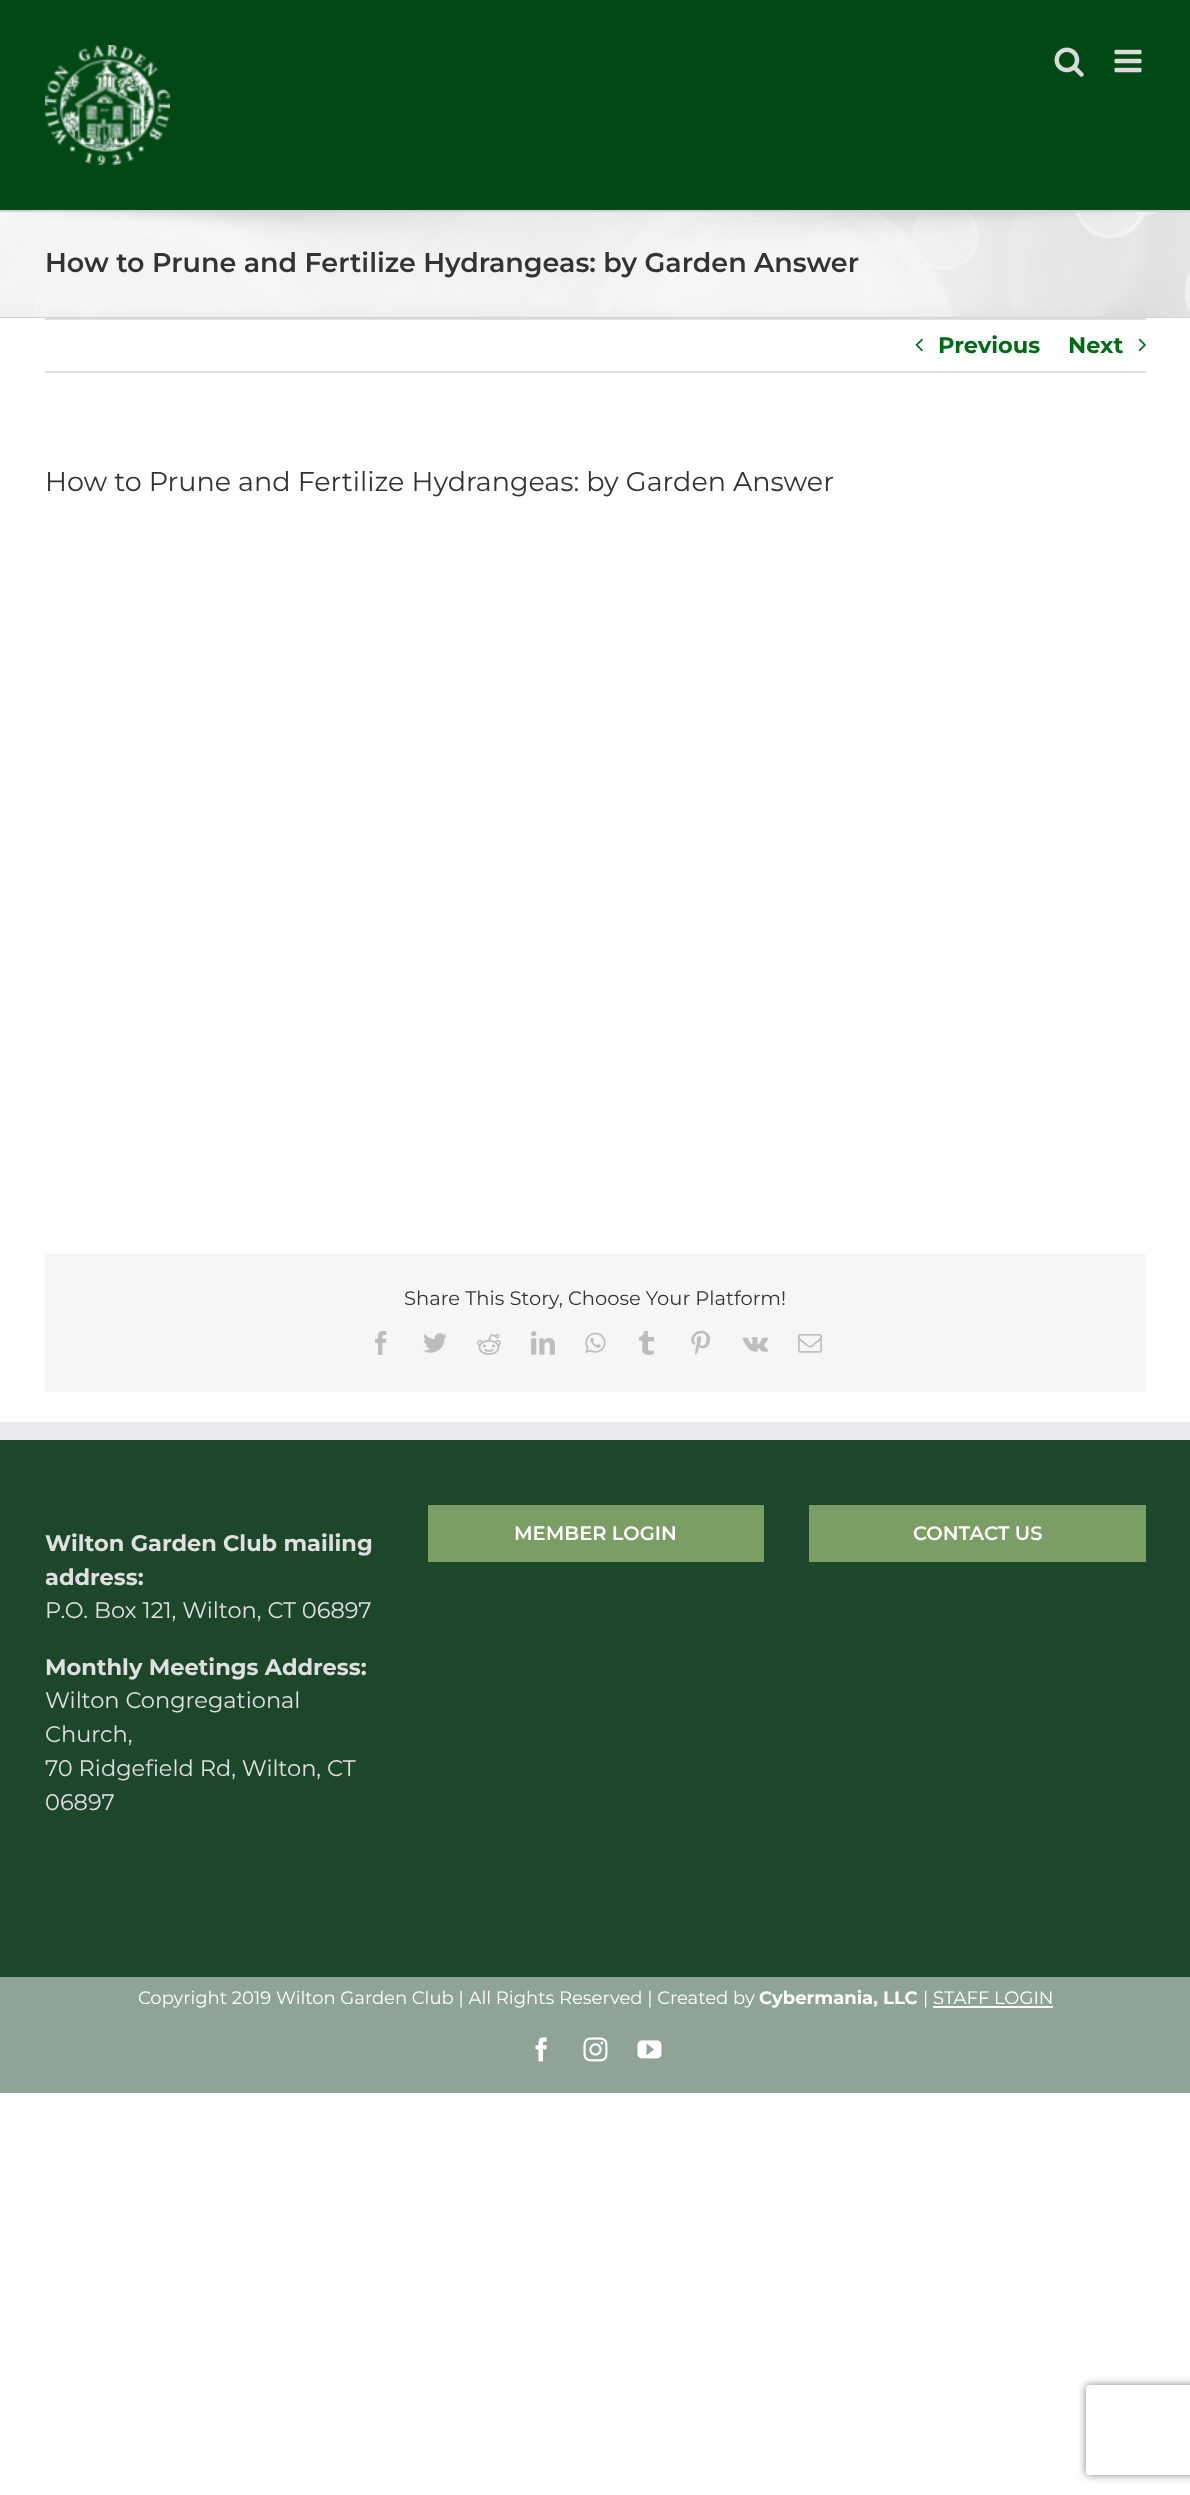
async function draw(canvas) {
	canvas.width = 1190;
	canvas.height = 2495;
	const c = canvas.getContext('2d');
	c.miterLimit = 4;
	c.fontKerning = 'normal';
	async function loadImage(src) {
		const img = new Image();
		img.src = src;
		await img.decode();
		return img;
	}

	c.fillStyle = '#fff';
	c.fillRect(0, 0, 1190, 2495);
	c.fillStyle = '#004914';
	c.fillRect(0, 0, 1190, 210);
	c.drawImage(await loadImage('img1.png'), 45, 45, 125, 120);
	c.drawImage(await loadImage('img2.png'), 1054, 47, 30, 30);
	c.drawImage(await loadImage('img3.png'), 1114, 49, 28, 24);
	c.fillStyle = '#f6f6f6';
	c.fillRect(0, 212, 1190, 105);
	c.drawImage(await loadImage('img4.png'), 0, 212, 1190, 105);
	c.fillStyle = '#d2d3d4';
	c.fillRect(0, 210, 1190, 2);
	c.fillRect(0, 317, 1190, 1);
	c.font = '600 27px Montserrat';
	c.fillStyle = '#333';
	c.fillText('How to Prune and Fertilize Hydrangeas: by Garden Answer', 45, 272);
	c.fillStyle = '#e0dede';
	c.fillRect(45, 318, 1101, 2);
	c.fillRect(45, 371, 1101, 2);
	c.drawImage(await loadImage('img5.png'), 915, 338, 8, 14);
	c.font = 'bold 22.5px Montserrat';
	c.fillStyle = '#006b15';
	c.fillText('Previous', 938, 353);
	c.fillText('Next', 1068, 353);
	c.drawImage(await loadImage('img6.png'), 1138, 338, 8, 14);
	c.font = '27px Montserrat';
	c.fillStyle = '#333';
	c.fillText('How to Prune and Fertilize Hydrangeas: by Garden Answer', 45, 491);
	c.fillStyle = '#f6f6f6';
	c.fillRect(45, 1254, 1101, 138);
	c.font = '19.5px Montserrat';
	c.fillStyle = '#333';
	c.fillText('Share This Story, Choose Your Platform!', 404, 1305);
	c.drawImage(await loadImage('img7.png'), 375, 1331, 12, 24);
	c.drawImage(await loadImage('img8.png'), 423, 1333, 24, 20);
	c.drawImage(await loadImage('img9.png'), 477, 1334, 24, 21);
	c.drawImage(await loadImage('img10.png'), 531, 1331, 24, 24);
	c.drawImage(await loadImage('img11.png'), 585, 1332, 21, 22);
	c.drawImage(await loadImage('img12.png'), 639, 1331, 15, 24);
	c.drawImage(await loadImage('img13.png'), 691, 1331, 19, 24);
	c.drawImage(await loadImage('img14.png'), 742, 1337, 27, 15);
	c.drawImage(await loadImage('img15.png'), 798, 1334, 24, 19);
	c.fillStyle = '#1d472a';
	c.fillRect(0, 1440, 1190, 537);
	c.fillStyle = '#e9eaee';
	c.fillRect(0, 1422, 1190, 18);
	c.font = 'bold 22.5px Montserrat';
	c.fillStyle = '#e0e0e0';
	c.fillText('Wilton Garden Club mailing', 45, 1551);
	c.fillText('address:', 45, 1585);
	c.font = '22.5px Montserrat';
	c.fillText('P.O. Box 121, Wilton, CT 06897', 45, 1618);
	c.font = 'bold 22.5px Montserrat';
	c.fillText('Monthly Meetings Address:', 45, 1675);
	c.font = '22.5px Montserrat';
	for (const [text, x, y] of [
		['Wilton Congregational', 45, 1708],
		['Church,', 45, 1742],
		['70 Ridgefield Rd, Wilton, CT', 45, 1776],
		['06897', 45, 1810],
	]) {
		c.fillText(text, x, y);
	}
	c.fillStyle = '#7a9e63';
	c.fillRect(428, 1505, 336, 57);
	c.font = '600 19.5px Montserrat';
	c.fillStyle = '#fff';
	c.fillText('MEMBER LOGIN', 514, 1540);
	c.fillStyle = '#7a9e63';
	c.fillRect(809, 1505, 337, 57);
	c.fillStyle = '#fff';
	c.fillText('CONTACT US', 913, 1540);
	c.fillStyle = '#8fa496';
	c.fillRect(0, 1977, 1190, 116);
	c.font = '18px Montserrat';
	c.fillStyle = '#fff';
	c.fillText('Copyright 2019 Wilton Garden Club | All Rights Reserved | Created by', 138, 2004);
	c.font = 'bold 18px Montserrat';
	c.fillText('Cybermania, LLC', 759, 2004);
	c.font = '18px Montserrat';
	c.fillText('| STAFF LOGIN', 923, 2004);
	c.fillRect(933, 2006, 120, 2);
	c.drawImage(await loadImage('img16.png'), 535, 2037, 12, 25);
	c.drawImage(await loadImage('img17.png'), 583, 2037, 25, 25);
	c.drawImage(await loadImage('img18.png'), 637, 2040, 25, 19);
	c.save();
	c.beginPath();
	c.moveTo(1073, 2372);
	c.lineTo(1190, 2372);
	c.lineTo(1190, 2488);
	c.lineTo(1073, 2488);
	c.closePath();
	c.moveTo(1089, 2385);
	c.lineTo(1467, 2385);
	c.bezierCurveTo(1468.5, 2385, 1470, 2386.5, 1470, 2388);
	c.lineTo(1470, 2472);
	c.bezierCurveTo(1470, 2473.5, 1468.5, 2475, 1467, 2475);
	c.lineTo(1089, 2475);
	c.bezierCurveTo(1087.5, 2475, 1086, 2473.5, 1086, 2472);
	c.lineTo(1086, 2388);
	c.bezierCurveTo(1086, 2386.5, 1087.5, 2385, 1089, 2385);
	c.closePath();
	c.clip('evenodd');
	c.fillStyle = '#808080';
	c.filter = 'blur(4px)';
	c.beginPath();
	c.roundRect(1086, 2385, 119, 90, 3);
	c.fill();
	c.filter = 'none';
	c.restore();
}

draw(document.querySelector('canvas'));
